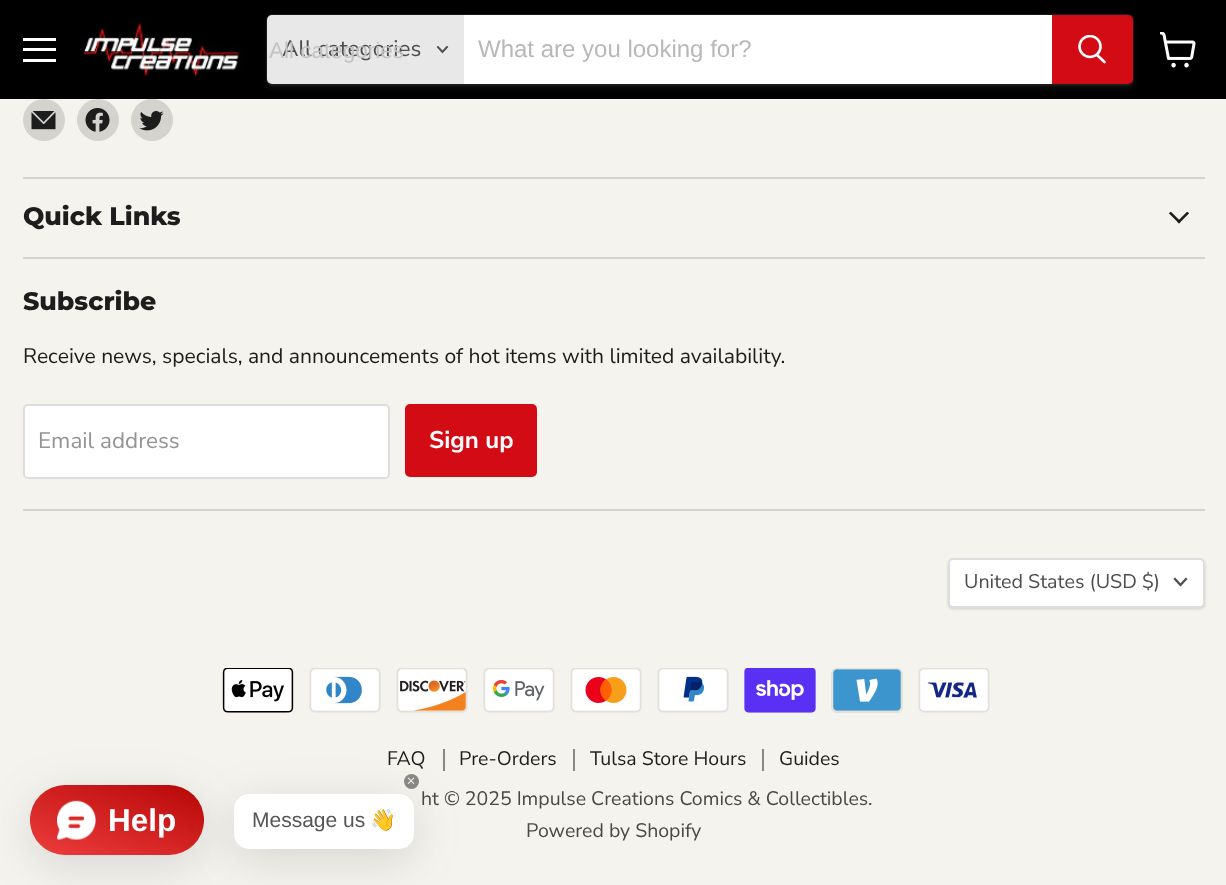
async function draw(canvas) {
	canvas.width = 1226;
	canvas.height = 885;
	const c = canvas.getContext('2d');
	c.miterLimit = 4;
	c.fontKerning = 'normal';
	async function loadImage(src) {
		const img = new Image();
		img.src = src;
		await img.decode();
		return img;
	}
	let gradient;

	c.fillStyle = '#f5f3ed';
	c.fillRect(0, 0, 1226, 885);
	for (const [x, y, w, h, color] of [
		[0, 0, 1226, 99, '#000'],
		[23, 38, 33, 3, '#fff'],
		[23, 48, 33, 3, '#fff'],
		[23, 59, 33, 3, '#fff'],
	]) {
		c.fillStyle = color;
		c.fillRect(x, y, w, h);
	}
	c.drawImage(await loadImage('img1.png'), 79, 20, 164, 60);
	c.save();
	c.beginPath();
	c.moveTo(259, 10);
	c.lineTo(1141, 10);
	c.lineTo(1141, 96);
	c.lineTo(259, 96);
	c.closePath();
	c.moveTo(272, 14);
	c.lineTo(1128, 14);
	c.bezierCurveTo(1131.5, 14, 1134, 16.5, 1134, 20);
	c.lineTo(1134, 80);
	c.bezierCurveTo(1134, 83.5, 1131.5, 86, 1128, 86);
	c.lineTo(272, 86);
	c.bezierCurveTo(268.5, 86, 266, 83.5, 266, 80);
	c.lineTo(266, 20);
	c.bezierCurveTo(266, 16.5, 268.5, 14, 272, 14);
	c.closePath();
	c.clip('evenodd');
	c.fillStyle = '#8080801c';
	c.filter = 'blur(2px)';
	c.beginPath();
	c.roundRect(266, 17, 868, 72, 6);
	c.fill();
	c.filter = 'none';
	c.restore();
	c.beginPath();
	c.roundRect(267, 15, 866, 70, 5);
	c.strokeStyle = '#80808033';
	c.lineWidth = 2;
	c.stroke();
	c.fillStyle = '#e8e8e8';
	c.beginPath();
	c.roundRect(267, 15, 197, 69, [5, 0, 0, 5]);
	c.fill();
	c.font = '22.5px Nunito Sans';
	c.fillStyle = '#4d4d4d';
	c.fillText('All categories', 282, 56);
	c.font = '22.5px Liberation Sans';
	c.fillStyle = '#c3c3c3';
	c.fillText('All categories', 269, 58);
	c.beginPath();
	c.moveTo(442.5, 52);
	c.lineTo(447, 47);
	c.moveTo(442.5, 52);
	c.lineTo(438, 47);
	c.strokeStyle = '#4d4d4d';
	c.lineWidth = 1.9;
	c.lineCap = 'square';
	c.stroke();
	c.fillStyle = '#fff';
	c.fillRect(464, 15, 588, 69);
	c.font = '24px Liberation Sans';
	c.fillStyle = '#b8b8b8';
	c.fillText('What are you looking for?', 478, 57);
	c.fillStyle = '#d30b15';
	c.beginPath();
	c.roundRect(1053, 16, 79, 67, [0, 4, 4, 0]);
	c.fill();
	c.strokeStyle = '#d30b15';
	c.lineWidth = 2;
	c.stroke();
	c.beginPath();
	c.moveTo(1104.5, 62);
	c.lineTo(1097, 55);
	c.strokeStyle = '#fff';
	c.lineWidth = 2.6;
	c.lineCap = 'round';
	c.stroke();
	c.save();
	c.beginPath();
	c.rect(1077, 35, 30, 31);
	c.clip();
	c.beginPath();
	c.arc(1090, 46.5, 10.5, 0, 2 * Math.PI);
	c.stroke();
	c.restore();
	c.drawImage(await loadImage('img2.png'), 1160, 32, 36, 36);
	c.fillStyle = '#d5d3ce';
	c.fillRect(23, 177, 1182, 2);
	c.beginPath();
	c.arc(44, 120, 21, 0, 2 * Math.PI);
	c.fill();
	c.drawImage(await loadImage('img3.png'), 31, 111, 25, 19);
	c.beginPath();
	c.arc(98, 120, 21, 0, 2 * Math.PI);
	c.fill();
	c.drawImage(await loadImage('img4.png'), 85, 108, 25, 24);
	c.beginPath();
	c.arc(152, 120, 21, 0, 2 * Math.PI);
	c.fill();
	c.drawImage(await loadImage('img5.png'), 139, 111, 25, 20);
	c.fillRect(23, 257, 1182, 2);
	c.font = '800 25.25px Montserrat';
	c.fillStyle = '#1d1d1d';
	c.fillText('Quick Links', 23, 225);
	c.drawImage(await loadImage('img6.png'), 1169, 212, 20, 12);
	c.fillStyle = '#d5d3ce';
	c.fillRect(23, 509, 1182, 2);
	c.fillStyle = '#1d1d1d';
	c.fillText('Subscribe', 23, 310);
	c.font = '21.1px Nunito Sans';
	c.fillText('Receive news, specials, and announcements of hot items with limited availability.', 23, 363);
	c.fillStyle = '#fff';
	c.beginPath();
	c.roundRect(24, 405, 365, 73, 4);
	c.fill();
	c.strokeStyle = '#ddd';
	c.lineWidth = 2;
	c.stroke();
	c.font = '22.5px Nunito Sans';
	c.fillStyle = '#949494';
	c.fillText('Email address', 38, 448);
	c.fillStyle = '#d30b15';
	c.beginPath();
	c.roundRect(406, 405, 130, 71, 4);
	c.fill();
	c.strokeStyle = '#d30b15';
	c.stroke();
	c.font = 'bold 24px Nunito Sans';
	c.fillStyle = '#fff';
	c.fillText('Sign up', 429, 448);
	c.fillStyle = '#00000026';
	c.filter = 'blur(1.5px)';
	c.beginPath();
	c.roundRect(948, 560, 257, 49, 5);
	c.fill();
	c.filter = 'none';
	c.fillStyle = '#fff';
	c.beginPath();
	c.roundRect(949, 559, 255, 48, 4);
	c.fill();
	c.strokeStyle = '#ddd';
	c.stroke();
	c.font = '19.75px Nunito Sans';
	c.fillStyle = '#4d4d4d';
	c.fillText('United States (USD $)', 964, 588);
	c.beginPath();
	c.moveTo(1180.5, 585);
	c.lineTo(1186, 579);
	c.moveTo(1180.5, 585);
	c.lineTo(1175, 579);
	c.strokeStyle = '#4d4d4d';
	c.lineWidth = 2.3;
	c.lineCap = 'square';
	c.stroke();
	c.drawImage(await loadImage('img7.png'), 222, 668, 72, 45);
	c.drawImage(await loadImage('img8.png'), 309, 668, 72, 45);
	c.drawImage(await loadImage('img9.png'), 396, 668, 72, 45);
	c.drawImage(await loadImage('img10.png'), 483, 668, 72, 45);
	c.drawImage(await loadImage('img11.png'), 570, 668, 72, 45);
	c.drawImage(await loadImage('img12.png'), 657, 668, 72, 45);
	c.drawImage(await loadImage('img13.png'), 744, 668, 72, 45);
	c.drawImage(await loadImage('img14.png'), 831, 668, 72, 45);
	c.drawImage(await loadImage('img15.png'), 918, 668, 72, 45);
	c.fillStyle = '#898885';
	c.fillRect(443, 749, 2, 22);
	c.font = '19.5px Nunito Sans';
	c.fillStyle = '#1d1d1d';
	c.fillText('FAQ', 387, 765);
	c.fillStyle = '#898885';
	c.fillRect(573, 749, 2, 22);
	c.fillStyle = '#1d1d1d';
	c.fillText('Pre-Orders', 459, 765);
	c.fillStyle = '#898885';
	c.fillRect(762, 749, 2, 22);
	c.fillStyle = '#1d1d1d';
	c.fillText('Tulsa Store Hours', 590, 765);
	c.fillText('Guides', 779, 765);
	c.fillStyle = '#484847';
	c.fillText('ht © 2025 Impulse Creations Comics & Collectibles.', 421, 805);
	c.fillText('Powered by Shopify', 526, 837);
	c.fillStyle = '#64646f33';
	c.filter = 'blur(22px)';
	c.beginPath();
	c.roundRect(30, 795, 174, 71, 35.5);
	c.fill();
	c.filter = 'none';
	gradient = c.createLinearGradient(137, 761, 97, 878);
	gradient.addColorStop(0, '#b60606');
	gradient.addColorStop(1, '#ed3d3d');
	c.fillStyle = gradient;
	c.beginPath();
	c.roundRect(30, 785, 174, 70, 35);
	c.fill();
	c.beginPath();
	c.ellipse(117, 820, 87, 35, 0, 0, 2 * Math.PI);
	c.fill();
	c.drawImage(await loadImage('img16.png'), 57, 800, 39, 40);
	c.font = 'bold 31.5px Liberation Sans';
	c.fillStyle = '#fff';
	c.fillText('Help', 108, 831);
	c.fillStyle = '#64646f33';
	c.filter = 'blur(22px)';
	c.beginPath();
	c.roundRect(234, 804, 180, 56, 15);
	c.fill();
	c.filter = 'none';
	c.fillStyle = '#fff';
	c.beginPath();
	c.roundRect(234, 794, 180, 55, 15);
	c.fill();
	c.fillStyle = '#3030308c';
	c.beginPath();
	c.arc(411.5, 781.5, 7.5, 0, 2 * Math.PI);
	c.fill();
	c.drawImage(await loadImage('img17.png'), 407, 777, 8, 7);
	c.font = '21px Liberation Sans';
	c.fillStyle = '#555';
	c.fillText('Message us', 252, 827);
	c.font = '21px Noto Color Emoji';
	c.fillText('👋', 370, 827);
}

draw(document.querySelector('canvas'));
